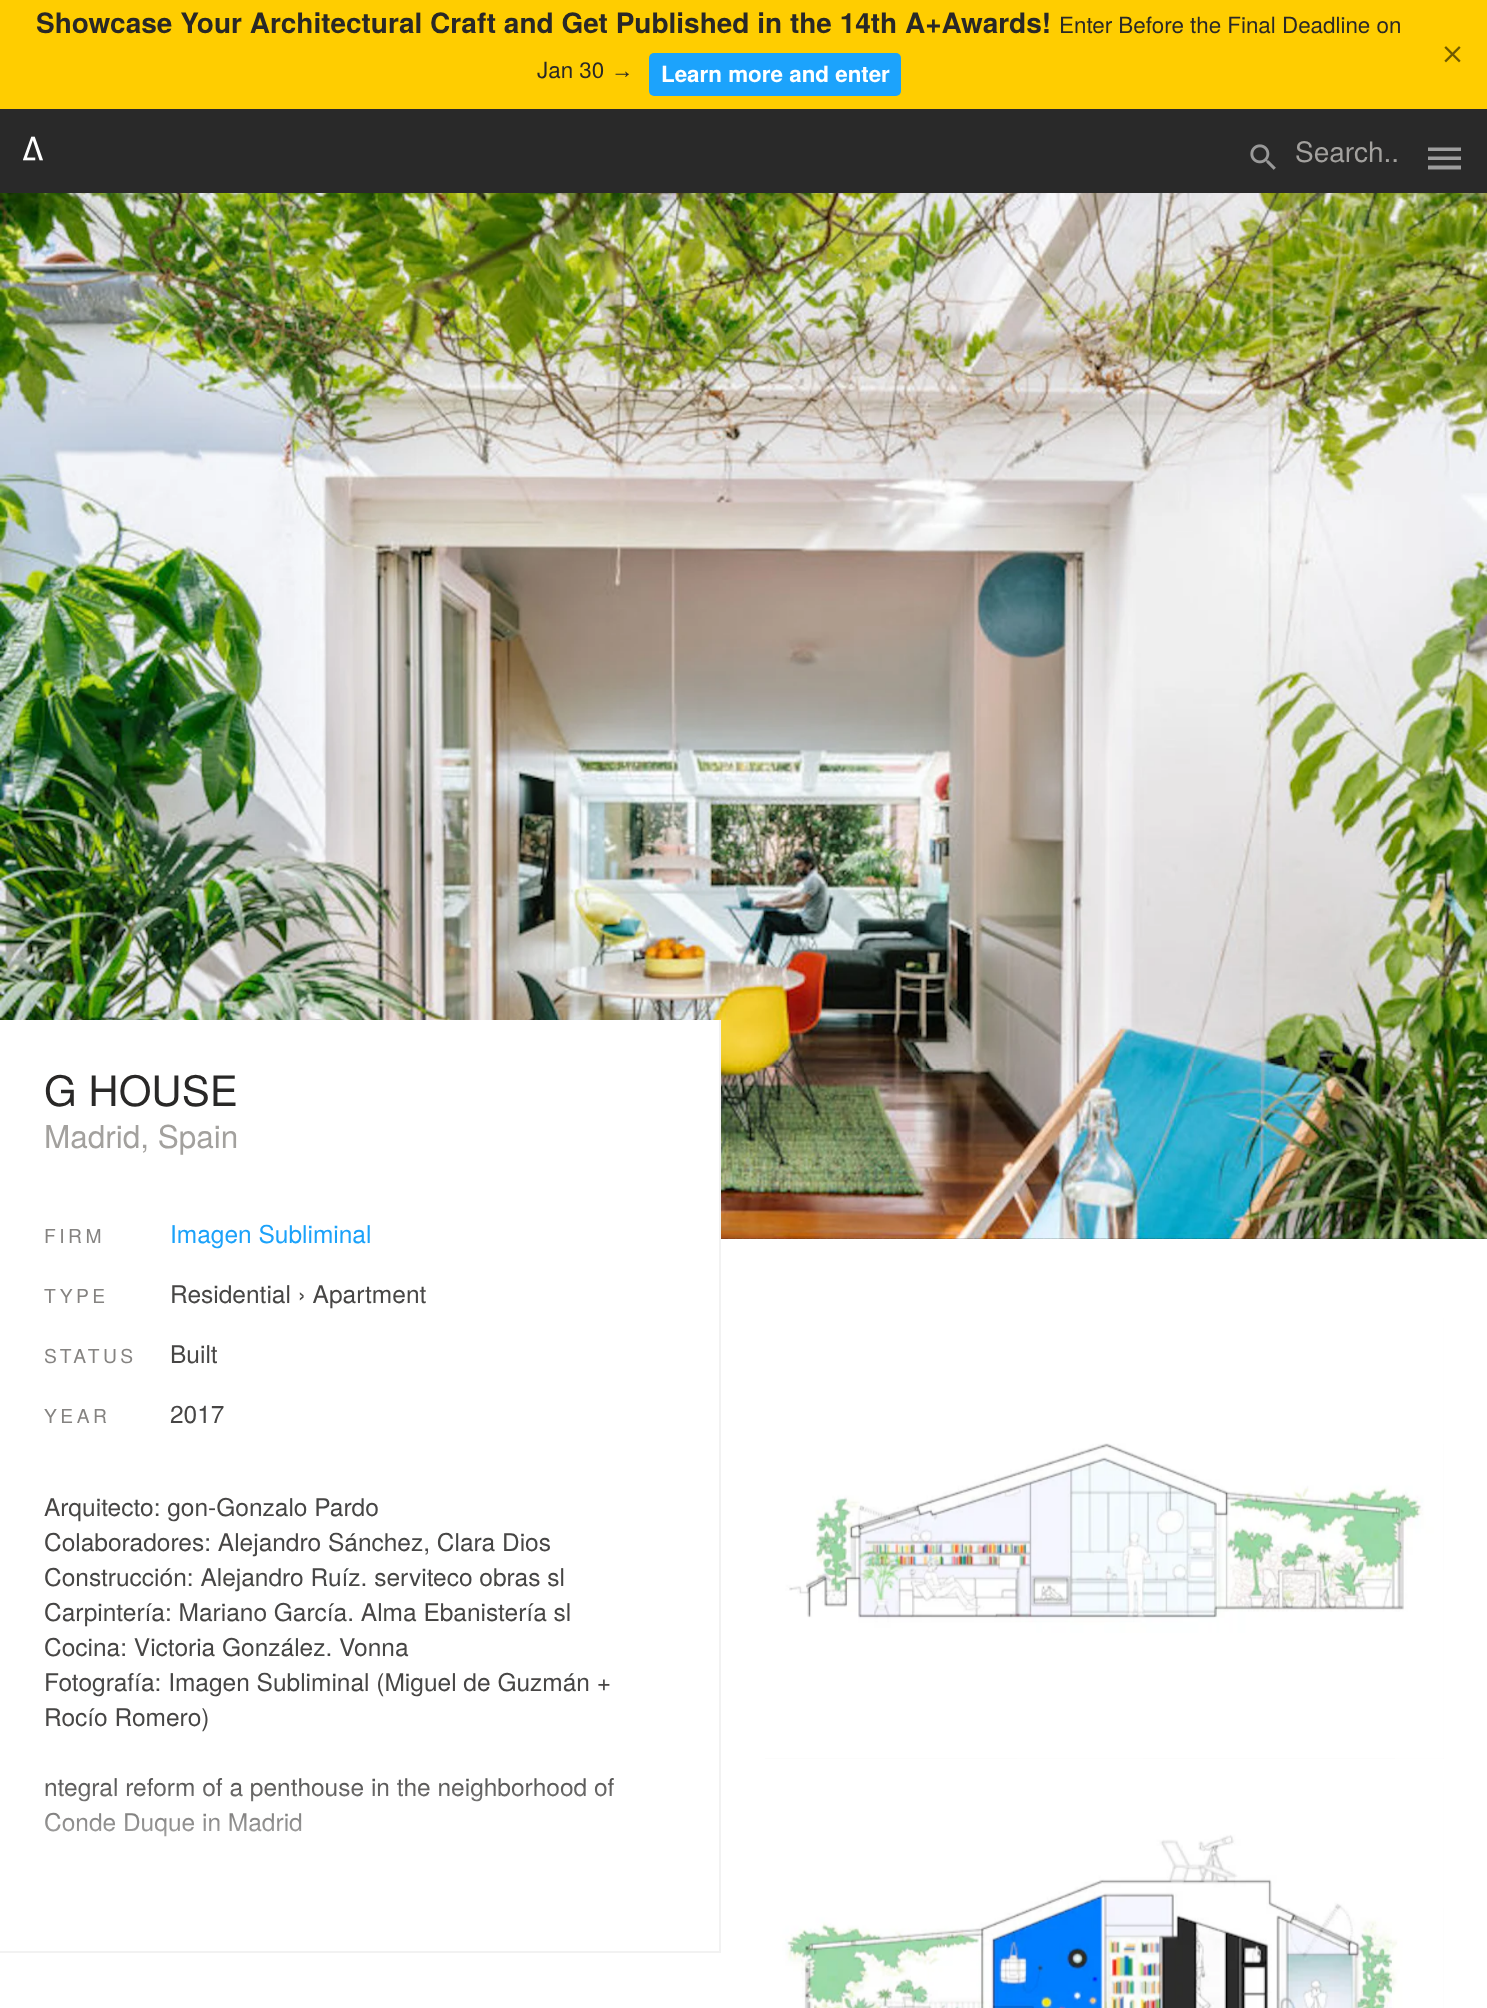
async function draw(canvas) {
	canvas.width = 1487;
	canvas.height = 2008;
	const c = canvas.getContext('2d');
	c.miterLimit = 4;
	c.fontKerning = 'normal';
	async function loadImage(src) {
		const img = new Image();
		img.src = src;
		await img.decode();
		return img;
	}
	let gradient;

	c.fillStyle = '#fff';
	c.fillRect(0, 0, 1487, 2008);
	c.fillStyle = '#ffcd00';
	c.fillRect(0, 0, 1487, 109);
	c.font = 'bold 28px TeX Gyre Heros';
	c.fillStyle = '#292827';
	c.fillText('Showcase Your Architectural Craft and Get Published in the 14th A+Awards!', 36, 33);
	c.font = '22.4px TeX Gyre Heros';
	c.fillText('Enter Before the Final Deadline on', 1059, 33);
	c.fillText('Jan 30', 537, 78);
	c.font = '22.4px Liberation Sans';
	c.fillText('→', 611, 78);
	c.fillStyle = '#1ca3fc';
	c.beginPath();
	c.roundRect(649, 53, 252, 43, 5);
	c.fill();
	c.font = 'bold 22.4px TeX Gyre Heros';
	c.fillStyle = '#fff';
	c.fillText('Learn more and enter', 661, 82);
	c.drawImage(await loadImage('img1.png'), 1444, 46, 17, 17);
	c.fillStyle = '#292929';
	c.fillRect(0, 109, 1487, 84);
	c.drawImage(await loadImage('img2.png'), 23, 136, 20, 25);
	c.drawImage(await loadImage('img3.png'), 1250, 144, 26, 26);
	c.font = '28px TeX Gyre Heros';
	c.fillStyle = '#a3a19e';
	c.fillText('Search..', 1295, 162);
	c.fillStyle = '#9e9e9e';
	c.beginPath();
	c.moveTo(1428, 147.5);
	c.lineTo(1461, 147.5);
	c.lineTo(1461, 151);
	c.lineTo(1428, 151);
	c.closePath();
	c.moveTo(1428, 160);
	c.lineTo(1428, 156.5);
	c.lineTo(1461, 156.5);
	c.lineTo(1461, 160);
	c.closePath();
	c.moveTo(1428, 169.5);
	c.lineTo(1428, 165.5);
	c.lineTo(1461, 165.5);
	c.lineTo(1461, 169.5);
	c.closePath();
	c.fill();
	c.drawImage(await loadImage('img4.png'), 721, 1238, 766, 1);
	c.drawImage(await loadImage('img5.png'), 0, 193, 1487, 1046);
	for (const [x, y, w, h, color] of [
		[0, 1020, 719, 219, '#fff'],
		[719, 1020, 2, 933, '#f2f2f2'],
		[0, 1951, 721, 2, '#f2f2f2'],
	]) {
		c.fillStyle = color;
		c.fillRect(x, y, w, h);
	}
	c.font = '42px TeX Gyre Heros';
	c.fillStyle = '#292827';
	c.fillText('G HOUSE', 44, 1106);
	c.font = '31.5px TeX Gyre Heros';
	c.fillStyle = '#a3a19e';
	c.fillText('Madrid, Spain', 44, 1148);
	c.letterSpacing = '3.5px';
	c.font = '19.25px TeX Gyre Heros';
	c.fillStyle = '#858381';
	c.fillText('FIRM', 44, 1243);
	c.letterSpacing = '0px';
	c.font = '24.5px TeX Gyre Heros';
	c.fillStyle = '#1ba2fa';
	c.fillText('Imagen Subliminal', 170, 1243);
	c.letterSpacing = '3.5px';
	c.font = '19.25px TeX Gyre Heros';
	c.fillStyle = '#858381';
	c.fillText('TYPE', 44, 1303);
	c.letterSpacing = '0px';
	c.font = '24.5px TeX Gyre Heros';
	c.fillStyle = '#474645';
	c.fillText('Residential › Apartment', 170, 1303);
	c.letterSpacing = '3.5px';
	c.font = '19.25px TeX Gyre Heros';
	c.fillStyle = '#858381';
	c.fillText('STATUS', 44, 1363);
	c.letterSpacing = '0px';
	c.font = '24.5px TeX Gyre Heros';
	c.fillStyle = '#474645';
	c.fillText('Built', 170, 1363);
	c.letterSpacing = '3.5px';
	c.font = '19.25px TeX Gyre Heros';
	c.fillStyle = '#858381';
	c.fillText('YEAR', 44, 1423);
	c.letterSpacing = '0px';
	c.font = '24.5px TeX Gyre Heros';
	c.fillStyle = '#474645';
	for (const [text, x, y] of [
		['2017', 170, 1423],
		['Arquitecto: gon-Gonzalo Pardo', 44, 1516],
		['Colaboradores: Alejandro Sánchez, Clara Dios', 44, 1551],
		['Construcción: Alejandro Ruíz. serviteco obras sl', 44, 1586],
		['Carpintería: Mariano García. Alma Ebanistería sl', 44, 1621],
		['Cocina: Victoria González. Vonna', 44, 1656],
		['Fotografía: Imagen Subliminal (Miguel de Guzmán +', 44, 1691],
		['Rocío Romero)', 44, 1726],
		['ntegral reform of a penthouse in the neighborhood of', 44, 1796],
		['Conde Duque in Madrid', 44, 1831],
	]) {
		c.fillText(text, x, y);
	}
	gradient = c.createLinearGradient(359, 1768, 359, 1908);
	gradient.addColorStop(0, '#ffffff00');
	gradient.addColorStop(1, '#fff');
	c.fillStyle = gradient;
	c.fillRect(44, 1778, 570, 59);
	c.drawImage(await loadImage('img6.png'), 765, 1318, 679, 441);
	c.drawImage(await loadImage('img7.png'), 765, 1318, 679, 441);
	c.drawImage(await loadImage('img8.png'), 1443, 1782, 1, 226);
	c.drawImage(await loadImage('img9.png'), 765, 1782, 679, 226);
}

draw(document.querySelector('canvas'));
